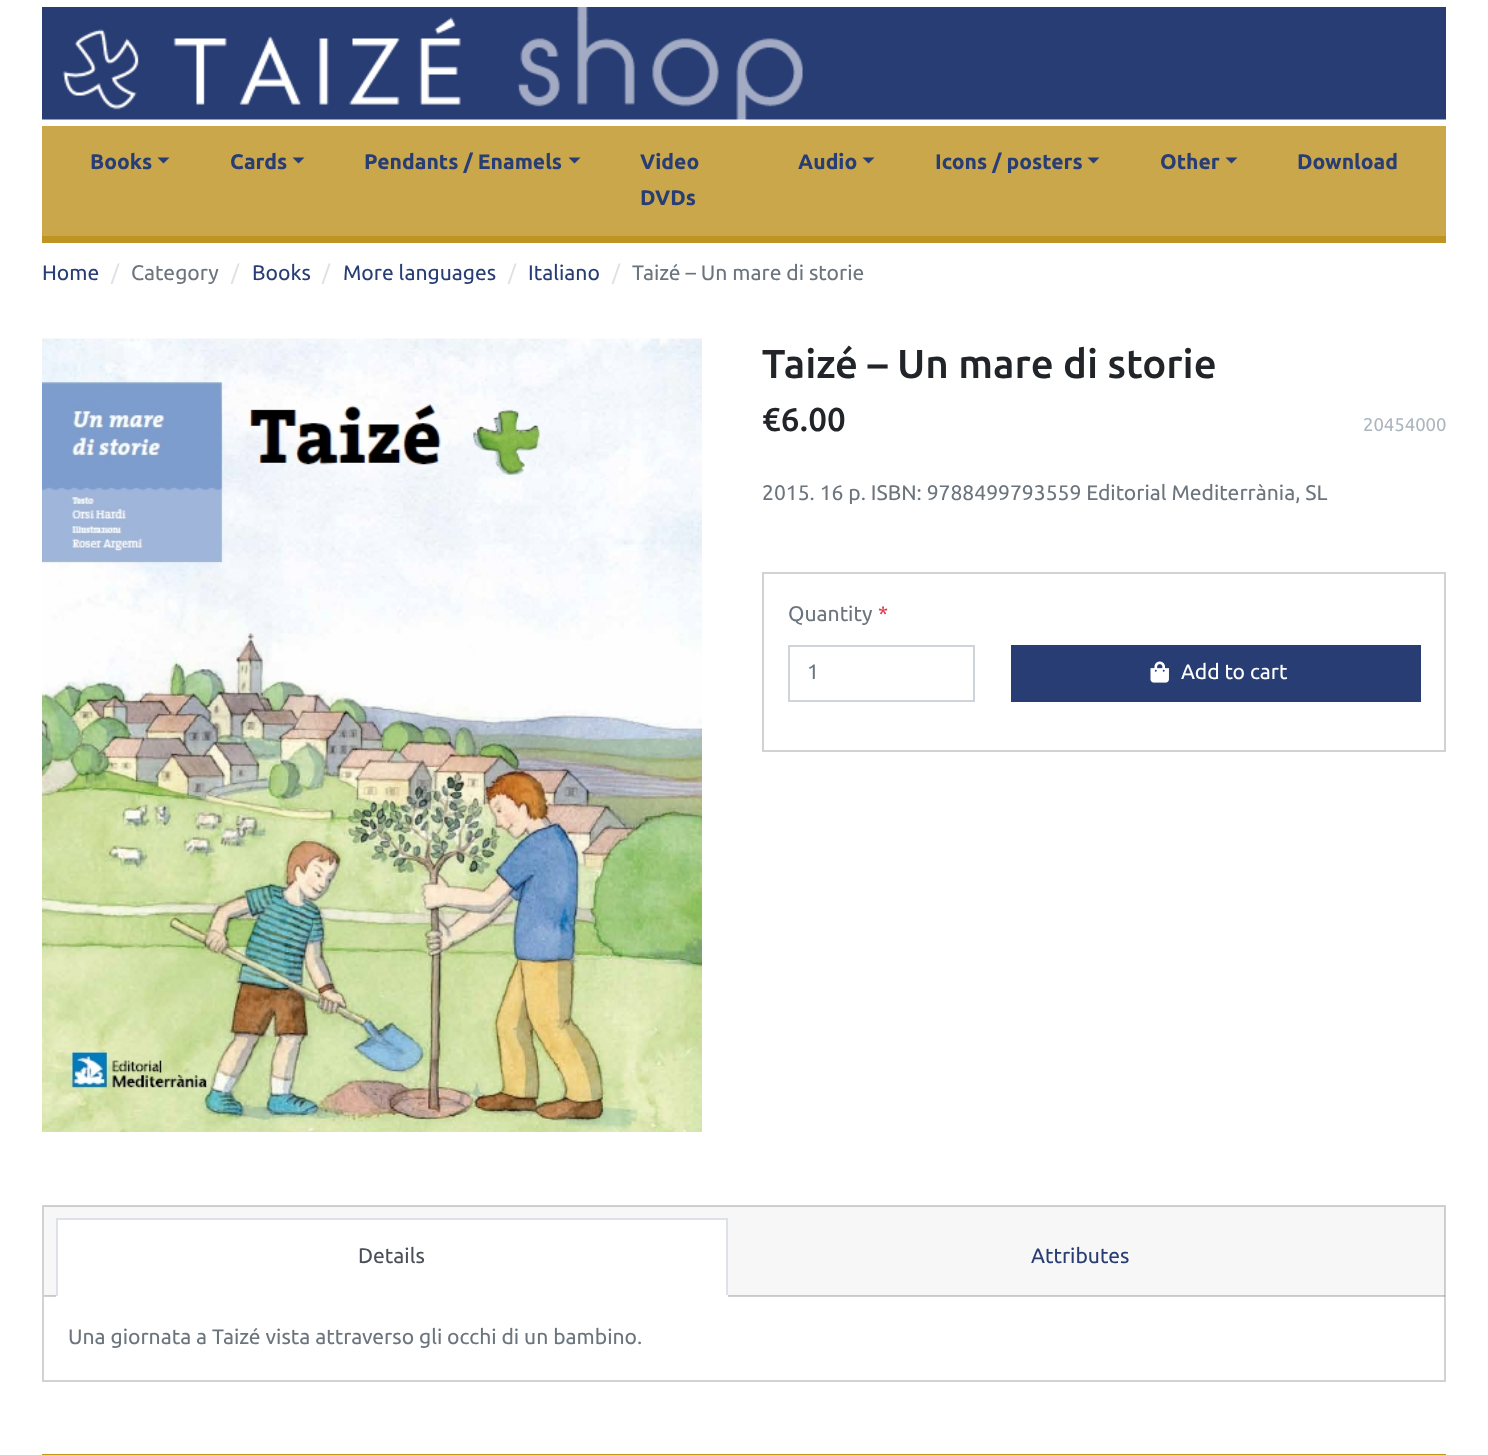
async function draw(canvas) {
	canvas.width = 1488;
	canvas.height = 1455;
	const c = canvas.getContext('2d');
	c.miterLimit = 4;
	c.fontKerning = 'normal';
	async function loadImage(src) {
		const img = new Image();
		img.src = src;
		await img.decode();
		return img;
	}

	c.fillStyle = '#fff';
	c.fillRect(0, 0, 1488, 1455);
	c.drawImage(await loadImage('img1.png'), 42, 7, 1404, 113);
	c.fillStyle = '#caa74b';
	c.fillRect(42, 126, 1404, 110);
	c.fillStyle = '#be9523';
	c.fillRect(42, 236, 1404, 7);
	c.font = 'bold 21.1px Ubuntu';
	c.fillStyle = '#283d74';
	c.fillText('Books', 90, 169);
	c.beginPath();
	c.moveTo(157.5, 157.5);
	c.lineTo(169.5, 157.5);
	c.lineTo(163.5, 163.5);
	c.closePath();
	c.fill();
	c.fillText('Cards', 230, 169);
	c.beginPath();
	c.moveTo(292.5, 157.5);
	c.lineTo(304.5, 157.5);
	c.lineTo(298.5, 163.5);
	c.closePath();
	c.fill();
	c.fillText('Pendants / Enamels', 364, 169);
	c.beginPath();
	c.moveTo(568.5, 157.5);
	c.lineTo(580.5, 157.5);
	c.lineTo(574.5, 163.5);
	c.closePath();
	c.fill();
	for (const [text, x, y] of [
		['Video', 640, 169],
		['DVDs', 640, 205],
		['Audio', 798, 169],
	]) {
		c.fillText(text, x, y);
	}
	c.beginPath();
	c.moveTo(862.5, 157.5);
	c.lineTo(874.5, 157.5);
	c.lineTo(868.5, 163.5);
	c.closePath();
	c.fill();
	c.fillText('Icons / posters', 935, 169);
	c.beginPath();
	c.moveTo(1087.5, 157.5);
	c.lineTo(1099.5, 157.5);
	c.lineTo(1093.5, 163.5);
	c.closePath();
	c.fill();
	c.fillText('Other', 1160, 169);
	c.beginPath();
	c.moveTo(1225.5, 157.5);
	c.lineTo(1237.5, 157.5);
	c.lineTo(1231.5, 163.5);
	c.closePath();
	c.fill();
	c.fillText('Download', 1297, 169);
	c.font = '21.1px Ubuntu';
	c.fillText('Home', 42, 280);
	c.fillStyle = '#dee2e6';
	c.fillText('/', 111, 280);
	c.fillStyle = '#6c757d';
	c.fillText('Category', 131, 280);
	c.fillStyle = '#dee2e6';
	c.fillText('/', 231, 280);
	c.fillStyle = '#283d74';
	c.fillText('Books', 252, 280);
	c.fillStyle = '#dee2e6';
	c.fillText('/', 322, 280);
	c.fillStyle = '#283d74';
	c.fillText('More languages', 343, 280);
	c.fillStyle = '#dee2e6';
	c.fillText('/', 508, 280);
	c.fillStyle = '#283d74';
	c.fillText('Italiano', 528, 280);
	c.fillStyle = '#dee2e6';
	c.fillText('/', 612, 280);
	c.fillStyle = '#6c757d';
	c.fillText('Taizé – Un mare di storie', 632, 280);
	c.drawImage(await loadImage('img2.png'), 42, 338, 660, 794);
	c.font = '500 40.25px Ubuntu';
	c.fillStyle = '#212529';
	c.fillText('Taizé – Un mare di storie', 762, 378);
	c.font = '500 33px Ubuntu';
	c.fillText('€6.00', 762, 431);
	c.font = '18.5px Ubuntu';
	c.fillStyle = '#adb5bd';
	c.fillText('20454000', 1363, 431);
	c.font = '21.1px Ubuntu';
	c.fillStyle = '#6c757d';
	c.fillText('2015. 16 p. ISBN: 9788499793559 Editorial Mediterrània, SL', 762, 500);
	c.strokeStyle = '#d2d2d2';
	c.lineWidth = 2;
	c.strokeRect(763, 573, 682, 178);
	c.fillText('Quantity', 788, 621);
	c.fillStyle = '#dc3545';
	c.fillText('*', 878, 621);
	c.strokeStyle = '#ced4da';
	c.strokeRect(789, 646, 185, 55);
	c.fillStyle = '#6c757d';
	c.fillText('1', 807, 679);
	c.fillStyle = '#283d74';
	c.fillRect(1011, 645, 410, 57);
	c.drawImage(await loadImage('img3.png'), 1150, 661, 19, 22);
	c.fillStyle = '#fff';
	c.fillText('Add to cart', 1181, 679);
	c.strokeStyle = '#d2d2d2';
	c.strokeRect(43, 1206, 1402, 175);
	for (const [x, y, w, h, color] of [
		[44, 1206, 1401, 90, '#00000008'],
		[44, 1295, 1401, 2, '#0000002e'],
		[58, 1220, 668, 75, '#fff'],
		[56, 1218, 672, 2, '#dee2e6'],
		[726, 1218, 2, 78, '#dee2e6'],
		[56, 1295, 672, 2, '#fff'],
		[56, 1218, 2, 78, '#dee2e6'],
	]) {
		c.fillStyle = color;
		c.fillRect(x, y, w, h);
	}
	c.fillStyle = '#495057';
	c.fillText('Details', 358, 1263);
	c.fillStyle = '#283d74';
	c.fillText('Attributes', 1031, 1263);
	c.fillStyle = '#6c757d';
	c.fillText('Una giornata a Taizé vista attraverso gli occhi di un bambino.', 68, 1344);
	c.fillStyle = '#be9523';
	c.fillRect(42, 1454, 1404, 1);
}

draw(document.querySelector('canvas'));
